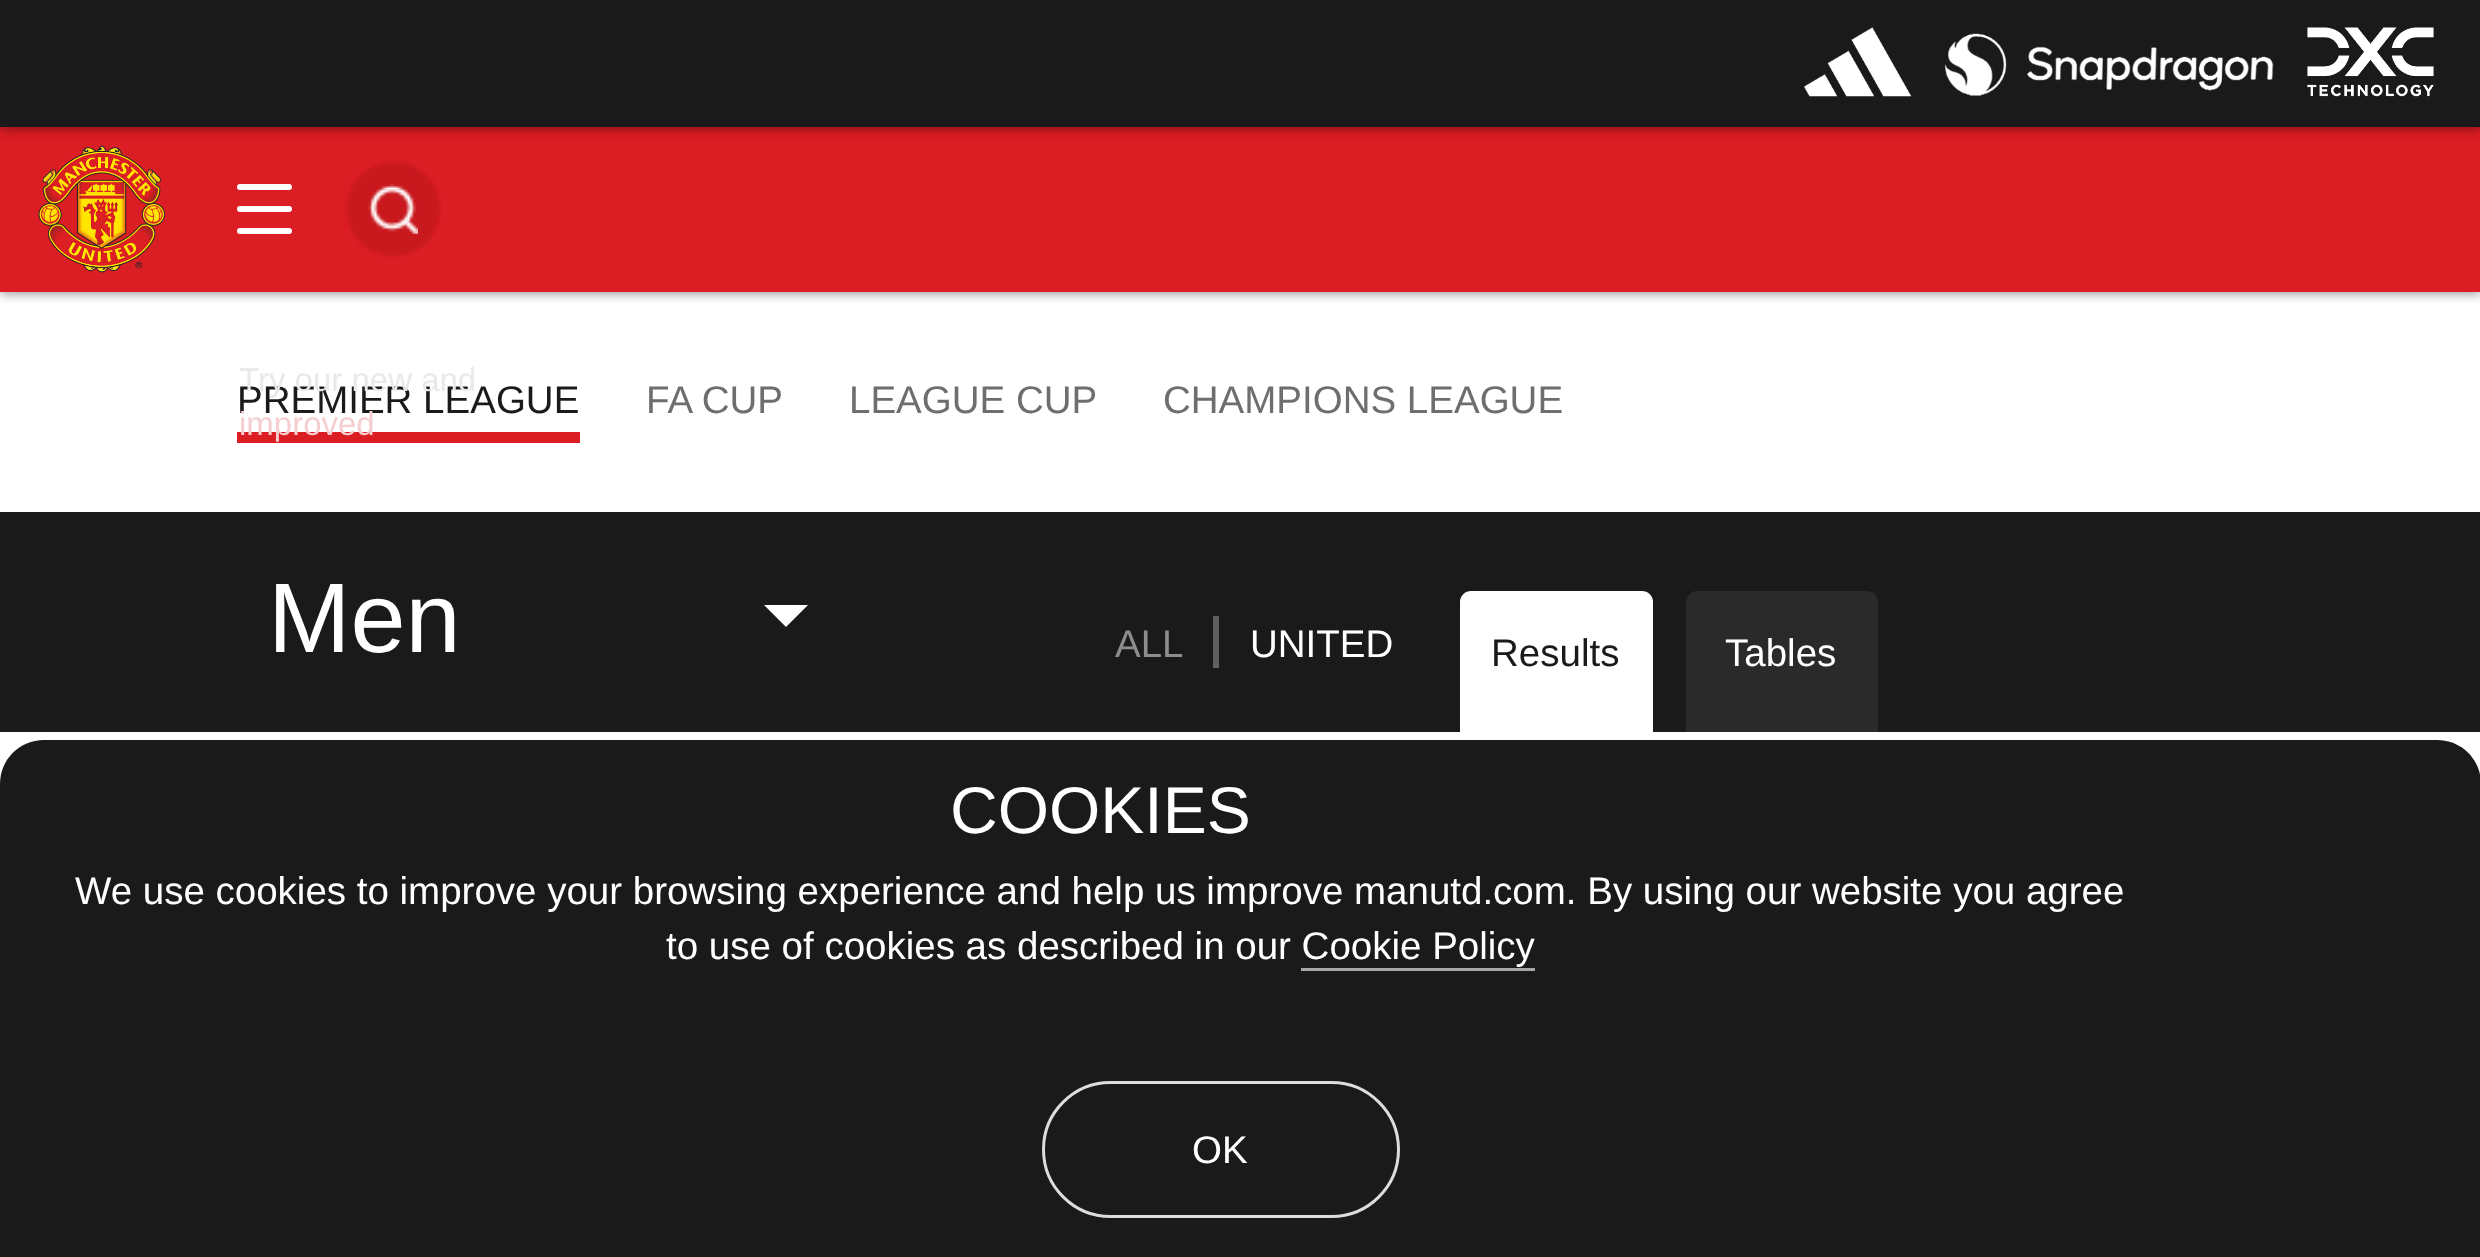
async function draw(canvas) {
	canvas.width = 2480;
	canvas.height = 1257;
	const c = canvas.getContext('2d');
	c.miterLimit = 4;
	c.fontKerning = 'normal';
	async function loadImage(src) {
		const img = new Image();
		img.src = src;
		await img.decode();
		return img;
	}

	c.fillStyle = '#fff';
	c.fillRect(0, 0, 2480, 1257);
	c.fillStyle = '#00000066';
	c.filter = 'blur(5.5px)';
	c.beginPath();
	c.rect(0, 129, 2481, 165);
	c.fill();
	c.filter = 'none';
	c.fillStyle = '#db1d24';
	c.fillRect(0, 127, 2480, 165);
	c.drawImage(await loadImage('img4.png'), 38, 145, 127, 128);
	c.fillStyle = '#00000066';
	c.filter = 'blur(5.5px)';
	c.beginPath();
	c.rect(0, 3, 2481, 126);
	c.fill();
	c.filter = 'none';
	c.fillStyle = '#1a1a1a';
	c.fillRect(0, 0, 2480, 127);
	c.drawImage(await loadImage('img1.png'), 1804, 27, 108, 70);
	c.drawImage(await loadImage('img2.png'), 1945, 33, 329, 63);
	c.drawImage(await loadImage('img3.png'), 2307, 27, 127, 70);
	c.fillStyle = '#fff';
	c.beginPath();
	c.roundRect(237, 184, 55, 6, 3);
	c.fill();
	c.beginPath();
	c.roundRect(237, 206, 55, 6, 3);
	c.fill();
	c.beginPath();
	c.roundRect(237, 228, 55, 6, 3);
	c.fill();
	c.save();
	c.beginPath();
	c.moveTo(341, 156);
	c.lineTo(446, 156);
	c.lineTo(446, 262);
	c.lineTo(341, 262);
	c.closePath();
	c.moveTo(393, 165);
	c.bezierCurveTo(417.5, 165, 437, 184.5, 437, 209);
	c.bezierCurveTo(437, 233.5, 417.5, 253, 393, 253);
	c.bezierCurveTo(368.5, 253, 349, 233.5, 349, 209);
	c.bezierCurveTo(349, 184.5, 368.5, 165, 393, 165);
	c.closePath();
	c.clip('evenodd');
	c.fillStyle = '#4e03031f';
	c.filter = 'blur(1.5px)';
	c.beginPath();
	c.roundRect(347, 162, 93, 94, 46.5);
	c.fill();
	c.filter = 'none';
	c.restore();
	c.fillStyle = '#4e03031f';
	c.beginPath();
	c.arc(393, 209, 44, 0, 2 * Math.PI);
	c.fill();
	c.drawImage(await loadImage('img5.png'), 368, 184, 50, 50);
	c.font = '38.5px Liberation Sans';
	c.fillStyle = '#1a1a1a';
	c.fillText('PREMIER LEAGUE', 237, 413);
	c.font = '33px Liberation Sans';
	c.fillStyle = '#e9e9e9';
	c.fillText('Try our new and', 239, 391);
	c.fillStyle = '#db1d24';
	c.fillRect(237, 432, 343, 11);
	c.fillStyle = '#f5cfd0';
	c.fillText('improved', 239, 435);
	c.font = '38.5px Liberation Sans';
	c.fillStyle = '#6e6e6e';
	for (const [text, x, y] of [
		['FA CUP', 646, 413],
		['LEAGUE CUP', 849, 413],
		['CHAMPIONS LEAGUE', 1163, 413],
	]) {
		c.fillText(text, x, y);
	}
	c.fillStyle = '#1a1a1a';
	c.fillRect(0, 512, 2480, 220);
	c.font = '99px Liberation Sans';
	c.fillStyle = '#fff';
	c.fillText('Men', 268, 652);
	c.beginPath();
	c.moveTo(764, 605);
	c.lineTo(808, 605);
	c.lineTo(786, 627);
	c.closePath();
	c.fill();
	c.font = '38.5px Liberation Sans';
	c.fillStyle = '#8d8d8d';
	c.fillText('ALL', 1115, 657);
	c.fillStyle = '#5f5f5f';
	c.fillRect(1213, 616, 6, 52);
	c.fillStyle = '#fff';
	c.fillText('UNITED', 1250, 657);
	c.beginPath();
	c.roundRect(1460, 591, 193, 141, [11, 11, 0, 0]);
	c.fill();
	c.fillStyle = '#1a1a1a';
	c.fillText('Results', 1491, 666);
	c.fillStyle = '#2a2a2a';
	c.beginPath();
	c.roundRect(1686, 591, 192, 141, [11, 11, 0, 0]);
	c.fill();
	c.fillStyle = '#fff';
	c.fillText('Tables', 1725, 666);
	c.fillStyle = '#1a1a1a';
	c.beginPath();
	c.moveTo(44, 740);
	c.lineTo(2437, 740);
	c.bezierCurveTo(2461.5, 740, 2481, 759.5, 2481, 784);
	c.lineTo(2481, 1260);
	c.lineTo(0, 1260);
	c.lineTo(0, 784);
	c.bezierCurveTo(0, 759.5, 19.5, 740, 44, 740);
	c.closePath();
	c.fill();
	c.font = '66px Liberation Sans';
	c.fillStyle = '#fff';
	c.fillText('COOKIES', 950, 833);
	c.font = '38.5px Liberation Sans';
	c.fillText('We use cookies to improve your browsing experience and help us improve manutd.com. By using our website you agree', 75, 904);
	c.fillText('to use of cookies as described in our Cookie Policy', 666, 959);
	c.fillStyle = '#a8a8a8';
	c.fillRect(1301, 968, 234, 3);
	c.beginPath();
	c.roundRect(1043.5, 1082.5, 355, 134, 67);
	c.strokeStyle = '#ddd';
	c.lineWidth = 3;
	c.stroke();
	c.fillStyle = '#fff';
	c.fillText('OK', 1192, 1163);
}

draw(document.querySelector('canvas'));
